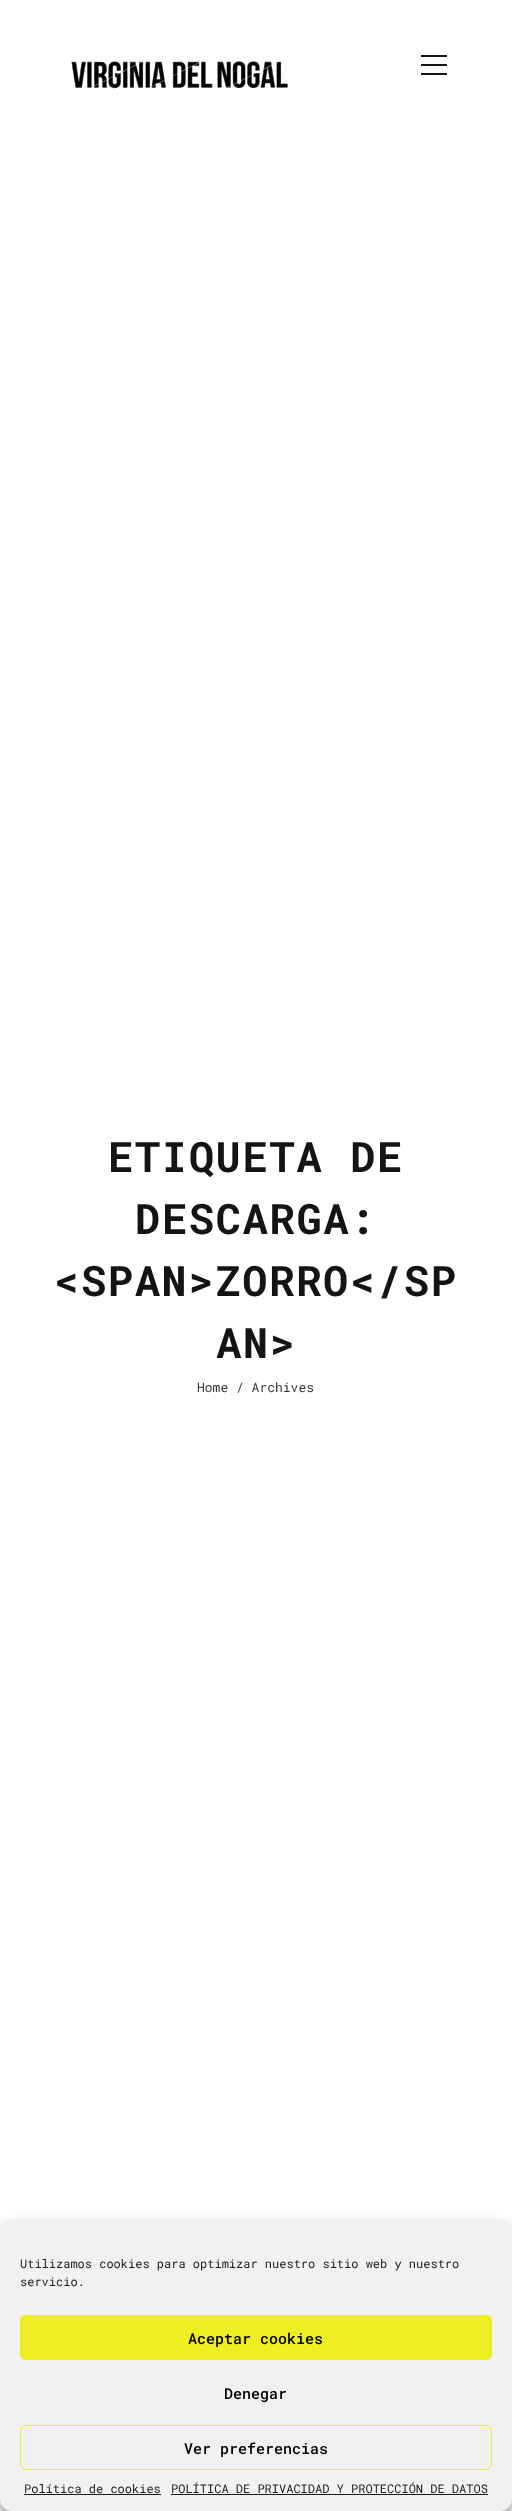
async function draw(canvas) {
	canvas.width = 512;
	canvas.height = 2511;
	const c = canvas.getContext('2d');
	c.miterLimit = 4;
	c.fontKerning = 'normal';
	async function loadImage(src) {
		const img = new Image();
		img.src = src;
		await img.decode();
		return img;
	}

	c.fillStyle = '#fff';
	c.fillRect(0, 0, 512, 2511);
	c.drawImage(await loadImage('img1.png'), 69, 61, 220, 28);
	for (const [x, y, w, h, color] of [
		[421, 55, 26, 2, '#141414'],
		[421, 64, 26, 2, '#141414'],
		[421, 73, 26, 2, '#141414'],
	]) {
		c.fillStyle = color;
		c.fillRect(x, y, w, h);
	}
	c.letterSpacing = '1.7px';
	c.font = 'bold 42px Roboto Mono';
	for (const [text, x, y] of [
		['ETIQUETA DE', 108, 1172],
		['DESCARGA:', 135, 1234],
		['<SPAN>ZORRO<\/SP', 54, 1296],
		['AN>', 216, 1358],
	]) {
		c.fillText(text, x, y);
	}
	c.letterSpacing = '0px';
	c.font = '13px Roboto Mono';
	c.fillStyle = '#363636';
	c.fillText('Home / Archives', 197, 1392);
	c.fillStyle = '#0000003b';
	c.filter = 'blur(3px)';
	c.beginPath();
	c.roundRect(0, 2225, 512, 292, 12);
	c.fill();
	c.filter = 'none';
	c.fillStyle = '#00000030';
	c.filter = 'blur(10px)';
	c.beginPath();
	c.roundRect(0, 2229, 512, 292, 12);
	c.fill();
	c.filter = 'none';
	c.fillStyle = '#f1f1f1';
	c.beginPath();
	c.roundRect(0, 2219, 512, 292, 12);
	c.fill();
	c.font = '12px Roboto Mono';
	c.fillStyle = '#191e23';
	c.fillText('Utilizamos cookies para optimizar nuestro sitio web y nuestro', 20, 2268);
	c.fillText('servicio.', 20, 2286);
	c.fillStyle = '#ee2';
	c.beginPath();
	c.roundRect(20.5, 2315.5, 471, 44, 5.5);
	c.fill();
	c.strokeStyle = '#ee2';
	c.stroke();
	c.font = '500 15px Roboto Mono';
	c.fillStyle = '#000';
	c.fillText('Aceptar cookies', 188, 2344);
	c.fillText('Denegar', 224, 2399);
	c.beginPath();
	c.roundRect(20.5, 2425.5, 471, 44, 5.5);
	c.stroke();
	c.fillText('Ver preferencias', 184, 2454);
	c.font = '12px Roboto Mono';
	c.fillStyle = '#191e23';
	c.fillText('Política de cookies', 24, 2493);
	c.fillRect(24, 2494, 137, 1);
	c.fillText('POLÍTICA DE PRIVACIDAD Y PROTECCIÓN DE DATOS', 171, 2493);
	c.fillRect(171, 2494, 317, 1);
}

draw(document.querySelector('canvas'));
